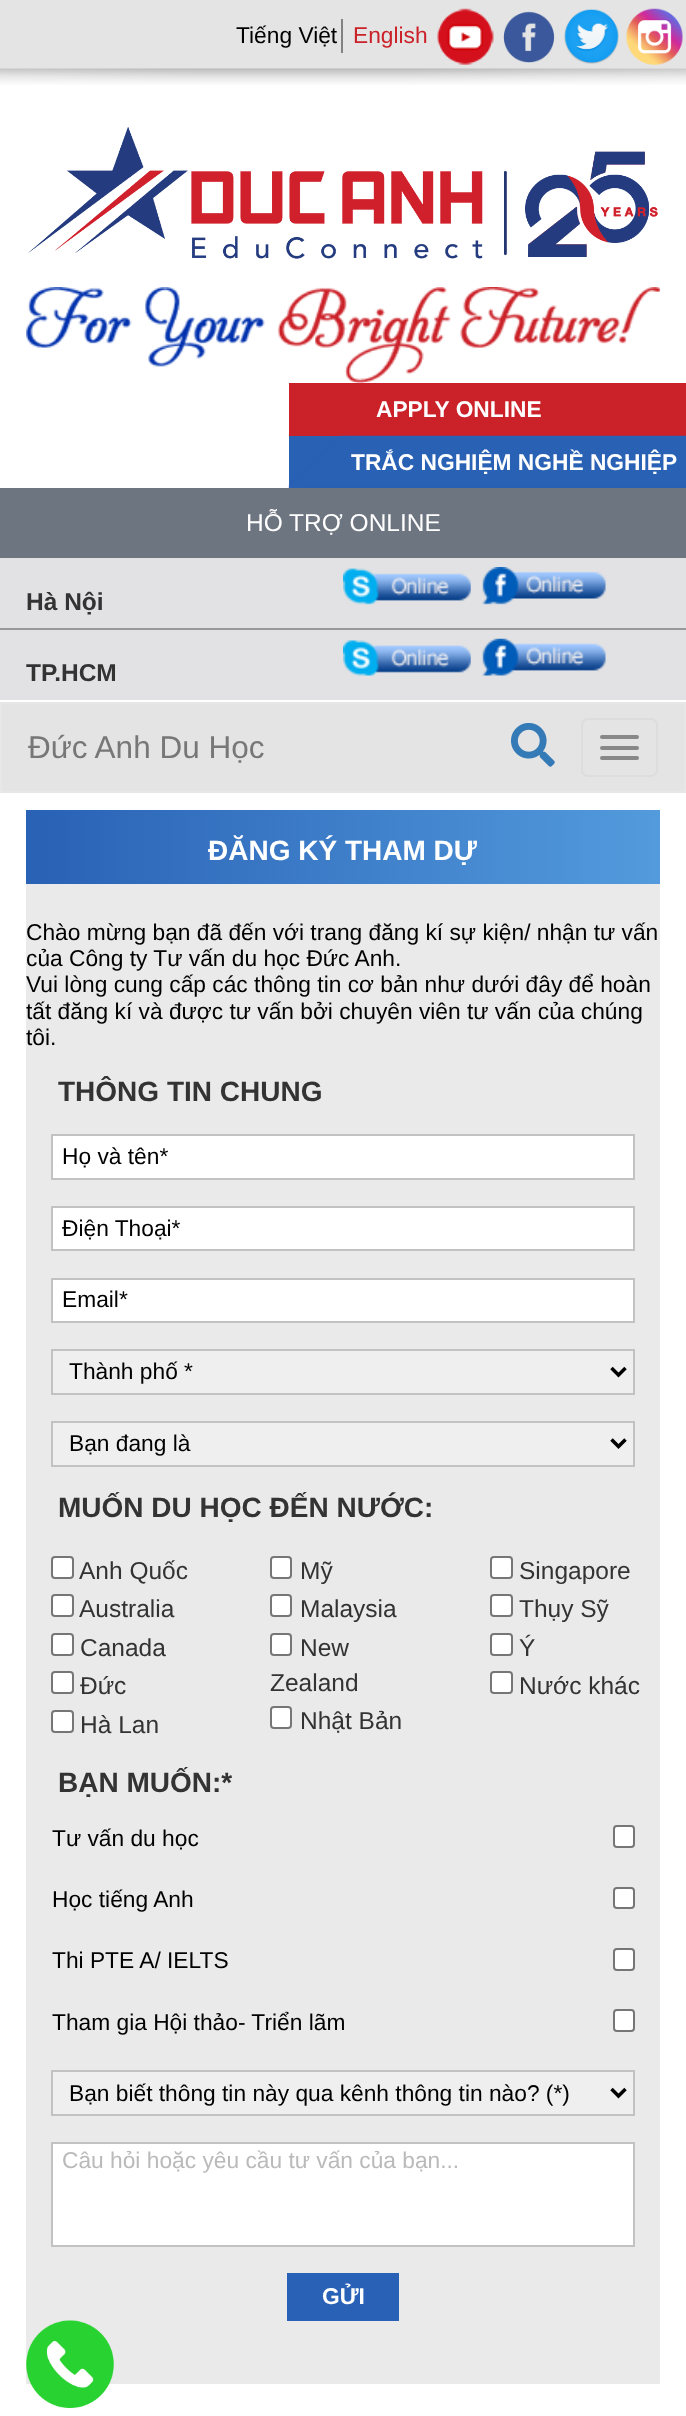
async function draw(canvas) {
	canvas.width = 686;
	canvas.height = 2416;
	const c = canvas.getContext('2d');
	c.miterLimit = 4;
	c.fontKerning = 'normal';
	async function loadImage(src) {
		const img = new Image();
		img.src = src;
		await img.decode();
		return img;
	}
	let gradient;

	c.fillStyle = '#fff';
	c.fillRect(0, 0, 686, 2416);
	c.fillStyle = '#e4e4e4';
	c.fillRect(0, 0, 686, 68);
	c.fillStyle = '#818181';
	c.fillRect(341, 19, 2, 34);
	c.font = '22.75px Liberation Sans';
	c.fillStyle = '#000';
	c.fillText('Tiếng Việt', 236, 43);
	c.fillStyle = '#cb2128';
	c.fillText('English', 353, 43);
	c.drawImage(await loadImage('img1.png'), 437, 8, 57, 57);
	c.drawImage(await loadImage('img2.png'), 503, 11, 52, 52);
	c.drawImage(await loadImage('img3.png'), 564, 9, 55, 55);
	c.drawImage(await loadImage('img4.png'), 626, 8, 57, 57);
	c.drawImage(await loadImage('img5.png'), 0, 68, 686, 17);
	c.drawImage(await loadImage('img6.png'), 28, 127, 630, 132);
	c.drawImage(await loadImage('img7.png'), 26, 287, 634, 96);
	c.fillRect(289, 383, 397, 53);
	c.drawImage(await loadImage('img8.png'), 288, 433, 1, 3);
	c.font = 'bold 22.75px Liberation Sans';
	c.fillStyle = '#fff';
	c.fillText('APPLY ONLINE', 376, 417);
	c.fillStyle = '#2961b5';
	c.fillRect(289, 436, 397, 52);
	c.drawImage(await loadImage('img9.png'), 288, 435, 398, 53);
	c.fillStyle = '#fff';
	c.fillText('TRẮC NGHIỆM NGHỀ NGHIỆP', 351, 470);
	c.fillStyle = '#6d7580';
	c.fillRect(0, 488, 686, 70);
	c.font = '24.5px Liberation Sans';
	c.fillStyle = '#fff';
	c.fillText('HỖ TRỢ ONLINE', 246, 531);
	c.fillStyle = '#e2e2e4';
	c.fillRect(0, 558, 686, 70);
	c.fillStyle = '#989898';
	c.fillRect(0, 628, 686, 2);
	c.font = 'bold 24.5px Liberation Sans';
	c.fillStyle = '#333';
	c.fillText('Hà Nội', 26, 610);
	c.drawImage(await loadImage('img10.png'), 343, 568, 128, 37);
	c.drawImage(await loadImage('img11.png'), 482, 567, 124, 38);
	c.fillStyle = '#e2e2e4';
	c.fillRect(0, 630, 686, 70);
	c.fillStyle = '#333';
	c.fillText('TP.HCM', 26, 681);
	c.drawImage(await loadImage('img12.png'), 343, 640, 128, 36);
	c.drawImage(await loadImage('img13.png'), 482, 638, 124, 38);
	c.fillStyle = '#e4e4e4';
	c.beginPath();
	c.rect(1, 703, 684, 89);
	c.fill();
	c.strokeStyle = '#e7e7e7';
	c.lineWidth = 2;
	c.stroke();
	c.font = '31.5px Liberation Sans';
	c.fillStyle = '#777';
	c.fillText('Đức Anh Du Học', 28, 758);
	c.beginPath();
	c.roundRect(582, 719, 75, 57, 6);
	c.strokeStyle = '#ddd';
	c.stroke();
	c.fillStyle = '#888';
	c.beginPath();
	c.roundRect(600, 735, 39, 4, 2);
	c.fill();
	c.beginPath();
	c.roundRect(600, 746, 39, 4, 2);
	c.fill();
	c.beginPath();
	c.roundRect(600, 756, 39, 4, 2);
	c.fill();
	c.drawImage(await loadImage('img14.png'), 511, 723, 44, 44);
	c.fillStyle = '#eaeaea';
	c.fillRect(26, 884, 634, 1500);
	gradient = c.createLinearGradient(26, 847, 660, 847);
	gradient.addColorStop(0, '#2961b5');
	gradient.addColorStop(1, '#539bdd');
	c.fillStyle = gradient;
	c.fillRect(26, 810, 634, 74);
	c.font = 'bold 28px Liberation Sans';
	c.fillStyle = '#fff';
	c.fillText('ĐĂNG KÝ THAM DỰ', 208, 860);
	c.font = '22.75px Liberation Sans';
	c.fillStyle = '#000';
	for (const [text, x, y] of [
		['Chào mừng bạn đã đến với trang đăng kí sự kiện/ nhận tư vấn', 26, 940],
		['của Công ty Tư vấn du học Đức Anh.', 26, 966],
		['Vui lòng cung cấp các thông tin cơ bản như dưới đây để hoàn', 26, 992],
		['tất đăng kí và được tư vấn bởi chuyên viên tư vấn của chúng', 26, 1019],
		['tôi.', 26, 1045],
	]) {
		c.fillText(text, x, y);
	}
	c.font = 'bold 28px Liberation Sans';
	c.fillStyle = '#333';
	c.fillText('THÔNG TIN CHUNG', 58, 1101);
	c.fillStyle = '#fff';
	c.beginPath();
	c.rect(52, 1135, 582, 44);
	c.fill();
	c.strokeStyle = '#c2c2c2';
	c.stroke();
	c.font = '22.75px Liberation Sans';
	c.fillStyle = '#000';
	c.fillText('Họ và tên*', 62, 1164);
	c.fillStyle = '#fff';
	c.beginPath();
	c.rect(52, 1207, 582, 43);
	c.fill();
	c.stroke();
	c.fillStyle = '#000';
	c.fillText('Điện Thoại*', 62, 1236);
	c.fillStyle = '#fff';
	c.beginPath();
	c.rect(52, 1279, 582, 43);
	c.fill();
	c.stroke();
	c.fillStyle = '#000';
	c.fillText('Email*', 62, 1307);
	c.fillStyle = '#efefef';
	c.beginPath();
	c.rect(52, 1350, 582, 44);
	c.fill();
	c.stroke();
	c.beginPath();
	c.moveTo(611.5, 1368);
	c.lineTo(618.5, 1375);
	c.lineTo(625.5, 1368);
	c.strokeStyle = '#000';
	c.lineWidth = 3.5;
	c.stroke();
	c.fillStyle = '#000';
	c.fillText('Thành phố *', 69, 1379);
	c.fillStyle = '#efefef';
	c.beginPath();
	c.rect(52, 1422, 582, 44);
	c.fill();
	c.strokeStyle = '#c2c2c2';
	c.lineWidth = 2;
	c.stroke();
	c.beginPath();
	c.moveTo(611.5, 1439.5);
	c.lineTo(618.5, 1446.5);
	c.lineTo(625.5, 1439.5);
	c.strokeStyle = '#000';
	c.lineWidth = 3.5;
	c.stroke();
	c.fillStyle = '#000';
	c.fillText('Bạn đang là', 69, 1451);
	c.font = 'bold 28px Liberation Sans';
	c.fillStyle = '#333';
	c.fillText('MUỐN DU HỌC ĐẾN NƯỚC:', 58, 1517);
	c.fillStyle = '#fff';
	c.beginPath();
	c.roundRect(52, 1557, 21, 21, 3);
	c.fill();
	c.strokeStyle = '#767676';
	c.lineWidth = 2;
	c.stroke();
	c.font = '24.5px Liberation Sans';
	c.fillStyle = '#333';
	c.fillText('Anh Quốc', 79, 1579);
	c.fillStyle = '#fff';
	c.beginPath();
	c.roundRect(271, 1557, 20, 21, 3);
	c.fill();
	c.stroke();
	c.fillStyle = '#333';
	c.fillText('Mỹ', 300, 1579);
	c.fillStyle = '#fff';
	c.beginPath();
	c.roundRect(491, 1557, 21, 21, 3);
	c.fill();
	c.stroke();
	c.fillStyle = '#333';
	c.fillText('Singapore', 519, 1579);
	c.fillStyle = '#fff';
	c.beginPath();
	c.roundRect(52, 1595, 21, 21, 3);
	c.fill();
	c.stroke();
	c.fillStyle = '#333';
	c.fillText('Australia', 79, 1617);
	c.fillStyle = '#fff';
	c.beginPath();
	c.roundRect(271, 1595, 20, 21, 3);
	c.fill();
	c.stroke();
	c.fillStyle = '#333';
	c.fillText('Malaysia', 300, 1617);
	c.fillStyle = '#fff';
	c.beginPath();
	c.roundRect(491, 1595, 21, 21, 3);
	c.fill();
	c.stroke();
	c.fillStyle = '#333';
	c.fillText('Thụy Sỹ', 519, 1617);
	c.fillStyle = '#fff';
	c.beginPath();
	c.roundRect(52, 1634, 21, 21, 3);
	c.fill();
	c.stroke();
	c.fillStyle = '#333';
	c.fillText('Canada', 80, 1656);
	c.fillStyle = '#fff';
	c.beginPath();
	c.roundRect(271, 1634, 20, 21, 3);
	c.fill();
	c.stroke();
	c.fillStyle = '#333';
	c.fillText('New', 300, 1656);
	c.fillText('Zealand', 270, 1691);
	c.fillStyle = '#fff';
	c.beginPath();
	c.roundRect(491, 1634, 21, 21, 3);
	c.fill();
	c.stroke();
	c.fillStyle = '#333';
	c.fillText('Ý', 519, 1656);
	c.fillStyle = '#fff';
	c.beginPath();
	c.roundRect(52, 1672, 21, 21, 3);
	c.fill();
	c.stroke();
	c.fillStyle = '#333';
	c.fillText('Đức', 80, 1694);
	c.fillStyle = '#fff';
	c.beginPath();
	c.roundRect(491, 1672, 21, 21, 3);
	c.fill();
	c.stroke();
	c.fillStyle = '#333';
	c.fillText('Nước khác', 519, 1694);
	c.fillStyle = '#fff';
	c.beginPath();
	c.roundRect(52, 1711, 21, 21, 3);
	c.fill();
	c.stroke();
	c.fillStyle = '#333';
	c.fillText('Hà Lan', 80, 1733);
	c.fillStyle = '#fff';
	c.beginPath();
	c.roundRect(271, 1707, 20, 21, 3);
	c.fill();
	c.stroke();
	c.fillStyle = '#333';
	c.fillText('Nhật Bản', 300, 1729);
	c.font = 'bold 28px Liberation Sans';
	c.fillText('BẠN MUỐN:*', 58, 1792);
	c.font = '22.75px Liberation Sans';
	c.fillStyle = '#000';
	c.fillText('Tư vấn du học', 52, 1846);
	c.fillStyle = '#fff';
	c.beginPath();
	c.roundRect(614, 1826, 20, 21, 3);
	c.fill();
	c.stroke();
	c.fillStyle = '#000';
	c.fillText('Học tiếng Anh', 52, 1907);
	c.fillStyle = '#fff';
	c.beginPath();
	c.roundRect(614, 1888, 20, 20, 3);
	c.fill();
	c.stroke();
	c.fillStyle = '#000';
	c.fillText('Thi PTE A/ IELTS', 52, 1968);
	c.fillStyle = '#fff';
	c.beginPath();
	c.roundRect(614, 1949, 20, 21, 3);
	c.fill();
	c.stroke();
	c.fillStyle = '#000';
	c.fillText('Tham gia Hội thảo- Triển lãm', 52, 2030);
	c.fillStyle = '#fff';
	c.beginPath();
	c.roundRect(614, 2010, 20, 21, 3);
	c.fill();
	c.stroke();
	c.fillStyle = '#efefef';
	c.beginPath();
	c.rect(52, 2071, 582, 44);
	c.fill();
	c.strokeStyle = '#c2c2c2';
	c.stroke();
	c.beginPath();
	c.moveTo(611.5, 2089);
	c.lineTo(618.5, 2096);
	c.lineTo(625.5, 2089);
	c.strokeStyle = '#000';
	c.lineWidth = 3.5;
	c.stroke();
	c.fillStyle = '#000';
	c.fillText('Bạn biết thông tin này qua kênh thông tin nào? (*)', 69, 2101);
	c.fillStyle = '#fff';
	c.beginPath();
	c.rect(52, 2143, 582, 103);
	c.fill();
	c.strokeStyle = '#c2c2c2';
	c.lineWidth = 2;
	c.stroke();
	c.fillStyle = '#bababa';
	c.fillText('Câu hỏi hoặc yêu cầu tư vấn của bạn...', 62, 2168);
	c.fillStyle = '#2961b6';
	c.fillRect(287, 2273, 112, 48);
	c.font = 'bold 22.75px Liberation Sans';
	c.fillStyle = '#fff';
	c.fillText('GỬI', 322, 2304);
	c.drawImage(await loadImage('img15.png'), 26, 2320, 88, 88);
}

draw(document.querySelector('canvas'));
